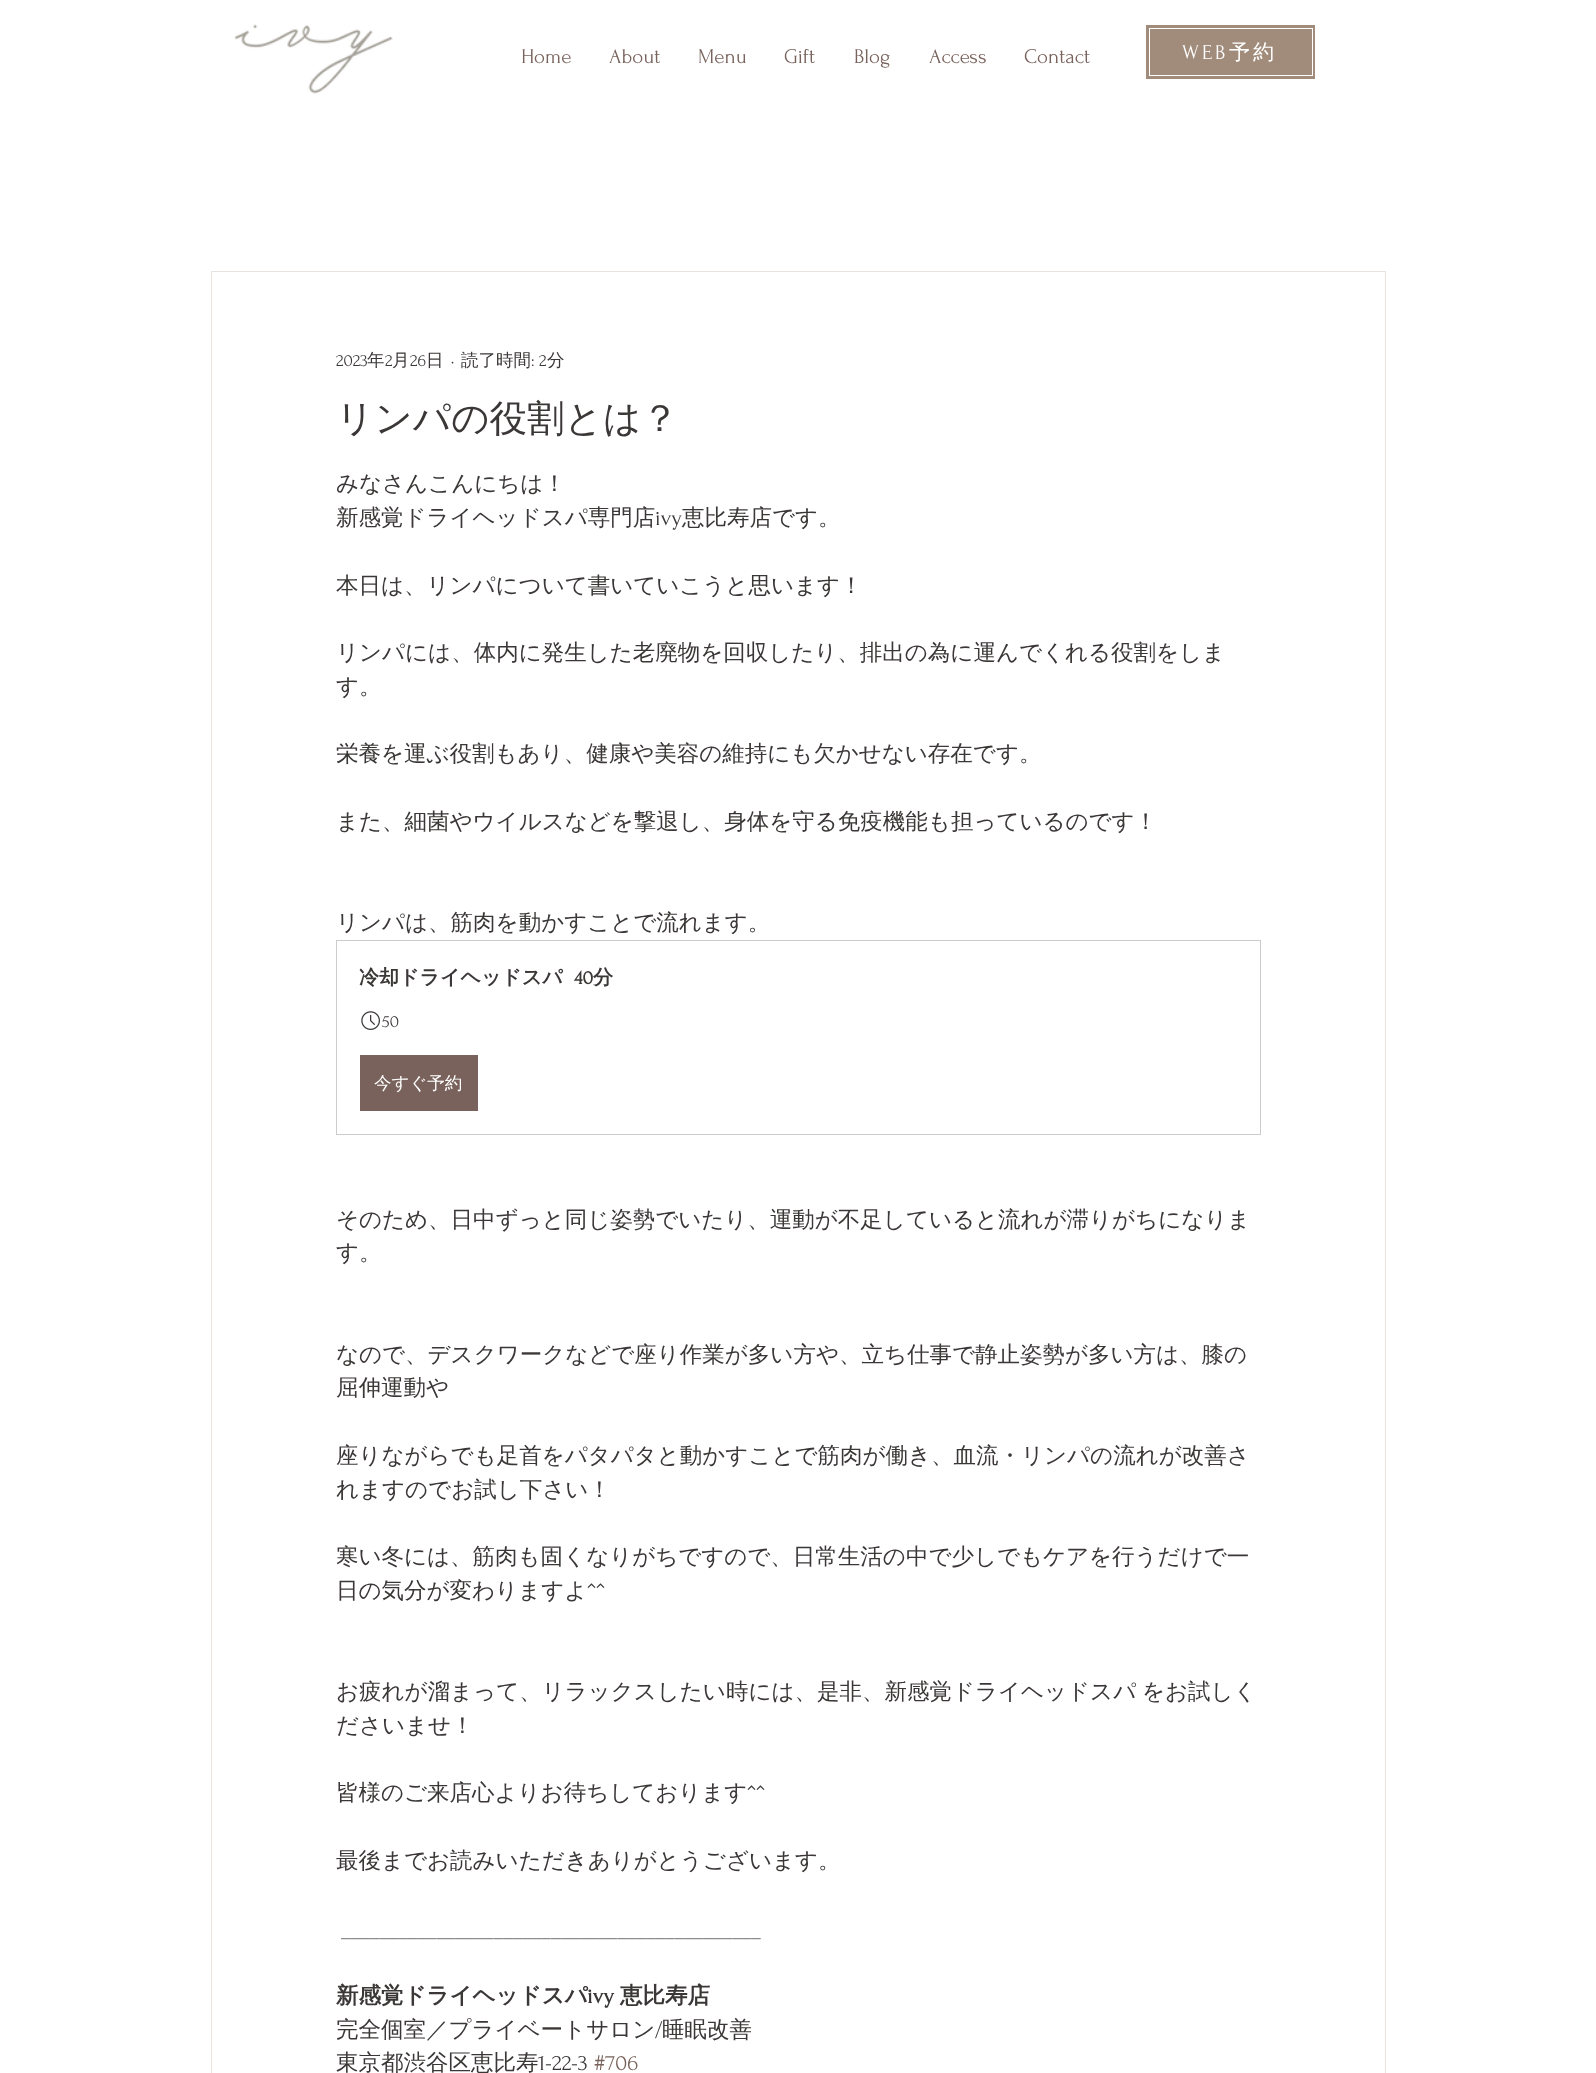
async function draw(canvas) {
	canvas.width = 1596;
	canvas.height = 2073;
	const c = canvas.getContext('2d');
	c.miterLimit = 4;
	c.fontKerning = 'normal';
	async function loadImage(src) {
		const img = new Image();
		img.src = src;
		await img.decode();
		return img;
	}

	c.fillStyle = '#fff';
	c.fillRect(0, 0, 1596, 2073);
	c.drawImage(await loadImage('img1.png'), 234, 24, 159, 70);
	c.font = '21px Forum';
	c.fillStyle = '#79625c';
	for (const [text, x, y] of [
		['Home', 521, 63],
		['About', 609, 63],
		['Menu', 698, 63],
		['Gift', 784, 63],
		['Blog', 854, 63],
		['Access', 929, 63],
		['Contact', 1024, 63],
	]) {
		c.fillText(text, x, y);
	}
	c.fillStyle = '#a18c7c';
	c.fillRect(1146, 25, 169, 54);
	c.strokeStyle = '#fff';
	c.strokeRect(1149.5, 28.5, 163, 47);
	c.letterSpacing = '3px';
	c.fillStyle = '#fff';
	c.fillText('WEB', 1182, 59);
	c.font = '500 21px WenQuanYi Zen Hei';
	c.fillText('予約', 1229, 59);
	c.strokeStyle = '#eae4e0';
	c.strokeRect(211.5, 271.5, 1174, 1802);
	c.letterSpacing = '0px';
	c.font = '17.5px Forum';
	c.fillStyle = '#3b3737';
	c.fillText('2023', 336, 366);
	c.font = '500 17.5px WenQuanYi Zen Hei';
	c.fillText('年', 367, 366);
	c.font = '17.5px Forum';
	c.fillText('2', 385, 366);
	c.font = '500 17.5px WenQuanYi Zen Hei';
	c.fillText('月', 392, 366);
	c.font = '17.5px Forum';
	c.fillText('26', 410, 366);
	c.font = '500 17.5px WenQuanYi Zen Hei';
	c.fillText('日', 426, 366);
	c.font = '17.5px Forum';
	c.fillText('·', 451, 366);
	c.font = '500 17.5px WenQuanYi Zen Hei';
	c.fillText('読了時間', 461, 366);
	c.font = '17.5px Forum';
	c.fillText(': 2', 531, 366);
	c.font = '500 17.5px WenQuanYi Zen Hei';
	c.fillText('分', 547, 366);
	c.font = '500 37.5px WenQuanYi Zen Hei';
	c.fillText('リンパの役割とは？', 336, 431);
	c.font = '500 22.5px WenQuanYi Zen Hei';
	c.fillText('みなさんこんにちは！', 336, 491);
	c.fillText('新感覚ドライヘッドスパ専門店', 336, 525);
	c.font = '22.5px Forum';
	c.fillText('ivy', 655, 525);
	c.font = '500 22.5px WenQuanYi Zen Hei';
	for (const [text, x, y] of [
		['恵比寿店です。', 682, 525],
		['本日は、リンパについて書いていこうと思います！', 336, 593],
		['リンパには、体内に発生した老廃物を回収したり、排出の為に運んでくれる役割をしま', 336, 660],
		['す。', 336, 694],
		['栄養を運ぶ役割もあり、健康や美容の維持にも欠かせない存在です。', 336, 761],
		['また、細菌やウイルスなどを撃退し、身体を守る免疫機能も担っているのです！', 336, 829],
		['リンパは、筋肉を動かすことで流れます。', 336, 930],
	]) {
		c.fillText(text, x, y);
	}
	c.strokeStyle = '#ccc';
	c.strokeRect(336.5, 940.5, 924, 194);
	c.font = 'bold 20px WenQuanYi Zen Hei';
	c.fillText('冷却ドライヘッドスパ', 359, 984);
	c.font = 'bold 20px Forum';
	c.fillText('40', 574, 984);
	c.font = 'bold 20px WenQuanYi Zen Hei';
	c.fillText('分', 593, 984);
	c.drawImage(await loadImage('img2.png'), 361, 1011, 19, 19);
	c.font = '17.5px Forum';
	c.fillText('50', 382, 1027);
	c.fillStyle = '#79625c';
	c.fillRect(360, 1055, 118, 56);
	c.font = '500 17.5px WenQuanYi Zen Hei';
	c.fillStyle = '#fff';
	c.fillText('今すぐ予約', 374, 1089);
	c.font = '500 22.5px WenQuanYi Zen Hei';
	c.fillStyle = '#3b3737';
	for (const [text, x, y] of [
		['そのため、日中ずっと同じ姿勢でいたり、運動が不足していると流れが滞りがちになりま', 336, 1227],
		['す。', 336, 1260],
		['なので、デスクワークなどで座り作業が多い方や、立ち仕事で静止姿勢が多い方は、膝の', 336, 1362],
		['屈伸運動や', 336, 1395],
		['座りながらでも足首をパタパタと動かすことで筋肉が働き、血流・リンパの流れが改善さ', 336, 1463],
		['れますのでお試し下さい！', 336, 1497],
		['寒い冬には、筋肉も固くなりがちですので、日常生活の中で少しでもケアを行うだけで一', 336, 1564],
		['日の気分が変わりますよ', 336, 1598],
	]) {
		c.fillText(text, x, y);
	}
	c.font = '22.5px Forum';
	c.fillText('^^', 587, 1598);
	c.wordSpacing = '-1px';
	c.font = '500 22.5px WenQuanYi Zen Hei';
	c.fillText('お疲れが溜まって、リラックスしたい時には、是非、新感覚ドライヘッドスパ をお試しく', 336, 1699);
	c.wordSpacing = '0px';
	c.fillText('ださいませ！', 336, 1733);
	c.fillText('皆様のご来店心よりお待ちしております', 336, 1800);
	c.font = '22.5px Forum';
	c.fillText('^^', 747, 1800);
	c.font = '500 22.5px WenQuanYi Zen Hei';
	c.fillText('最後までお読みいただきありがとうございます。', 336, 1868);
	c.font = '22.5px Forum';
	c.fillText('____________________________________________', 341, 1935);
	c.font = 'bold 22.5px WenQuanYi Zen Hei';
	c.fillText('新感覚ドライヘッドスパ', 336, 2003);
	c.font = 'bold 22.5px Forum';
	c.fillText('ivy', 587, 2003);
	c.font = 'bold 22.5px WenQuanYi Zen Hei';
	c.fillText('恵比寿店', 620, 2003);
	c.font = '500 22.5px WenQuanYi Zen Hei';
	c.fillText('完全個室／プライベートサロン', 336, 2037);
	c.font = '22.5px Forum';
	c.fillText('/', 655, 2037);
	c.font = '500 22.5px WenQuanYi Zen Hei';
	c.fillText('睡眠改善', 662, 2037);
	c.fillText('東京都渋谷区恵比寿', 336, 2070);
	c.font = '22.5px Forum';
	c.fillText('1-22-3', 538, 2070);
	c.fillStyle = '#79625c';
	c.fillText('#706', 594, 2070);
}

draw(document.querySelector('canvas'));
